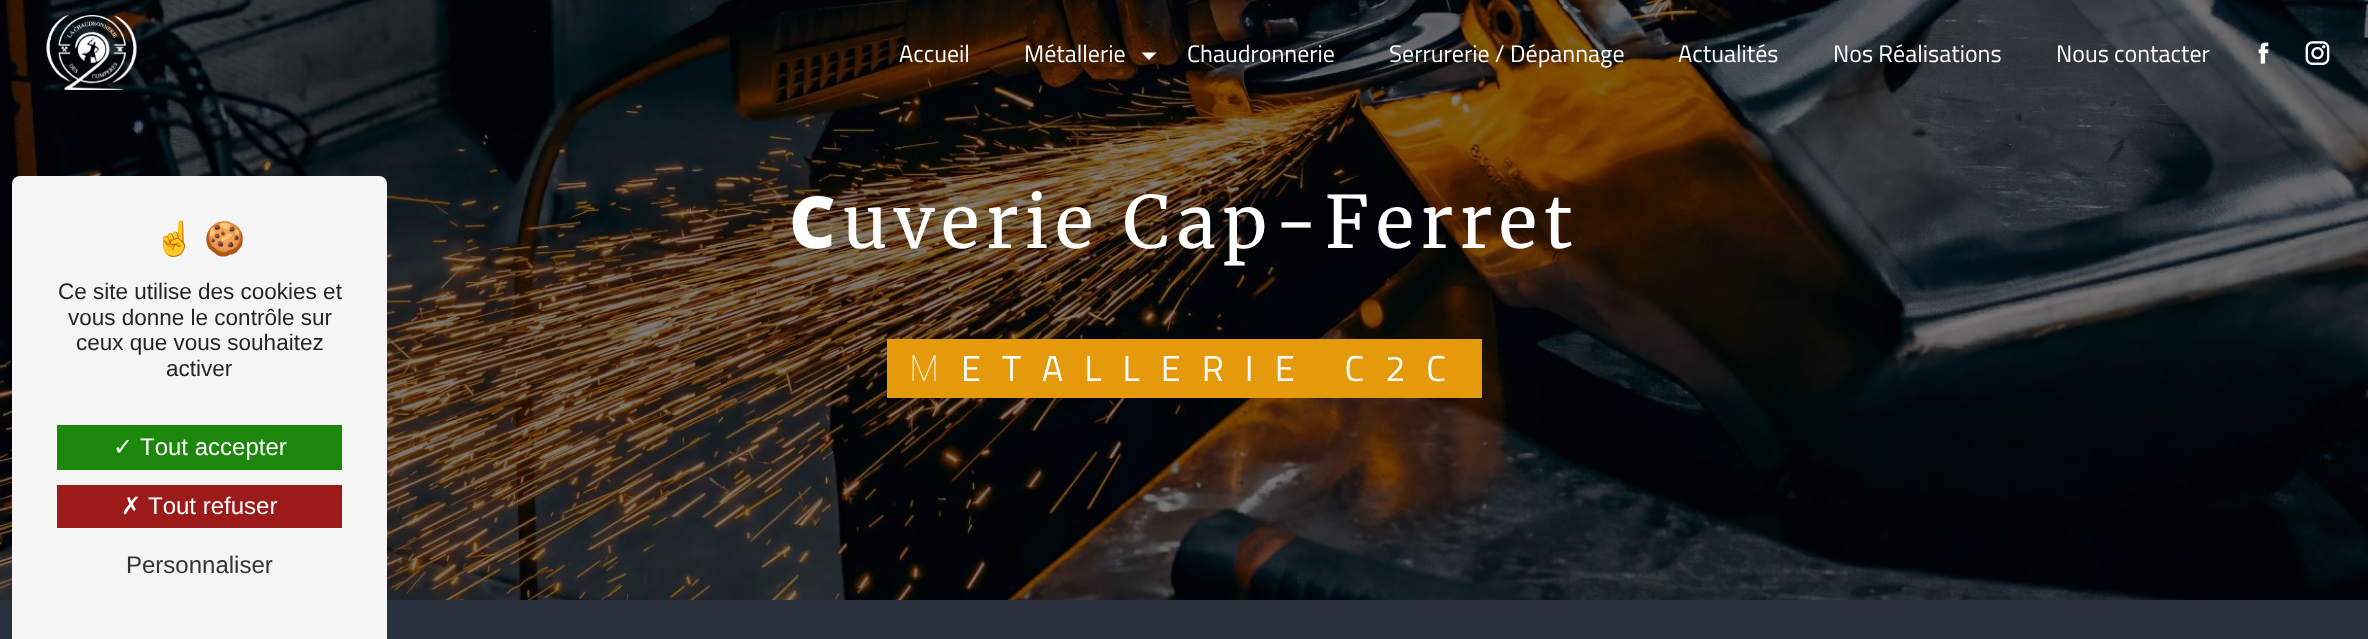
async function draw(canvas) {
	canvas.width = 2368;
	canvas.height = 639;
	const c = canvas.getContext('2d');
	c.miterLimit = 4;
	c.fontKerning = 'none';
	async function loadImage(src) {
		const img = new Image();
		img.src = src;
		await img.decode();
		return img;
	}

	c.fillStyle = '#fff';
	c.fillRect(0, 0, 2368, 639);
	c.drawImage(await loadImage('img4.png'), 0, 0, 2368, 600);
	c.fillStyle = '#29323c';
	c.fillRect(0, 600, 2368, 39);
	c.fillStyle = '#f5f5f5';
	c.beginPath();
	c.roundRect(12, 176, 375, 463, [8, 8, 0, 0]);
	c.fill();
	c.font = '33px Noto Color Emoji';
	c.fillStyle = '#242424';
	c.fillText('☝', 154, 250);
	c.fillText('🍪', 204, 250);
	c.font = '22.5px Liberation Sans';
	for (const [text, x, y] of [
		['Ce site utilise des cookies et', 58, 299],
		['vous donne le contrôle sur', 68, 325],
		['ceux que vous souhaitez', 76, 350],
		['activer', 166, 376],
	]) {
		c.fillText(text, x, y);
	}
	c.fillStyle = '#1b870b';
	c.fillRect(57, 425, 285, 45);
	c.font = '24px DejaVu Sans';
	c.fillStyle = '#fff';
	c.fillText('✓', 113, 455);
	c.font = '24px Liberation Sans';
	c.fillText('Tout accepter', 140, 455);
	c.fillStyle = '#9c1a1a';
	c.fillRect(57, 485, 285, 43);
	c.font = '24px DejaVu Sans';
	c.fillStyle = '#fff';
	c.fillText('✗', 121, 514);
	c.font = '24px Liberation Sans';
	c.fillText('Tout refuser', 148, 514);
	c.fillStyle = '#333';
	c.fillText('Personnaliser', 126, 573);
	c.drawImage(await loadImage('img1.png'), 46, 15, 91, 75);
	c.font = '24px Titillium Web';
	c.fillStyle = '#fff';
	c.fillText('Accueil', 899, 62);
	c.fillText('Métallerie', 1024, 62);
	c.beginPath();
	c.moveTo(1141.5, 52.5);
	c.lineTo(1156.5, 52.5);
	c.lineTo(1149, 60);
	c.closePath();
	c.fill();
	for (const [text, x, y] of [
		['Chaudronnerie', 1187, 62],
		['Serrurerie / Dépannage', 1389, 62],
		['Actualités', 1678, 62],
		['Nos Réalisations', 1833, 62],
		['Nous contacter', 2056, 62],
	]) {
		c.fillText(text, x, y);
	}
	c.drawImage(await loadImage('img2.png'), 2258, 42, 11, 22);
	c.drawImage(await loadImage('img3.png'), 2305, 41, 25, 24);
	c.letterSpacing = '6px';
	c.font = '900 72px Noto Sans';
	c.fillText('C', 789, 248);
	c.font = '72px Merriweather';
	c.fillText('uverie Cap-Ferret', 842, 248);
	c.fillStyle = '#e49a0a';
	c.fillRect(887, 339, 595, 59);
	c.letterSpacing = '21px';
	c.font = '100 36px Noto Sans';
	c.fillStyle = '#fff';
	c.fillText('M', 909, 381);
	c.font = '36px Titillium Web';
	c.fillText('ETALLERIE C2C', 961, 381);
}

draw(document.querySelector('canvas'));
